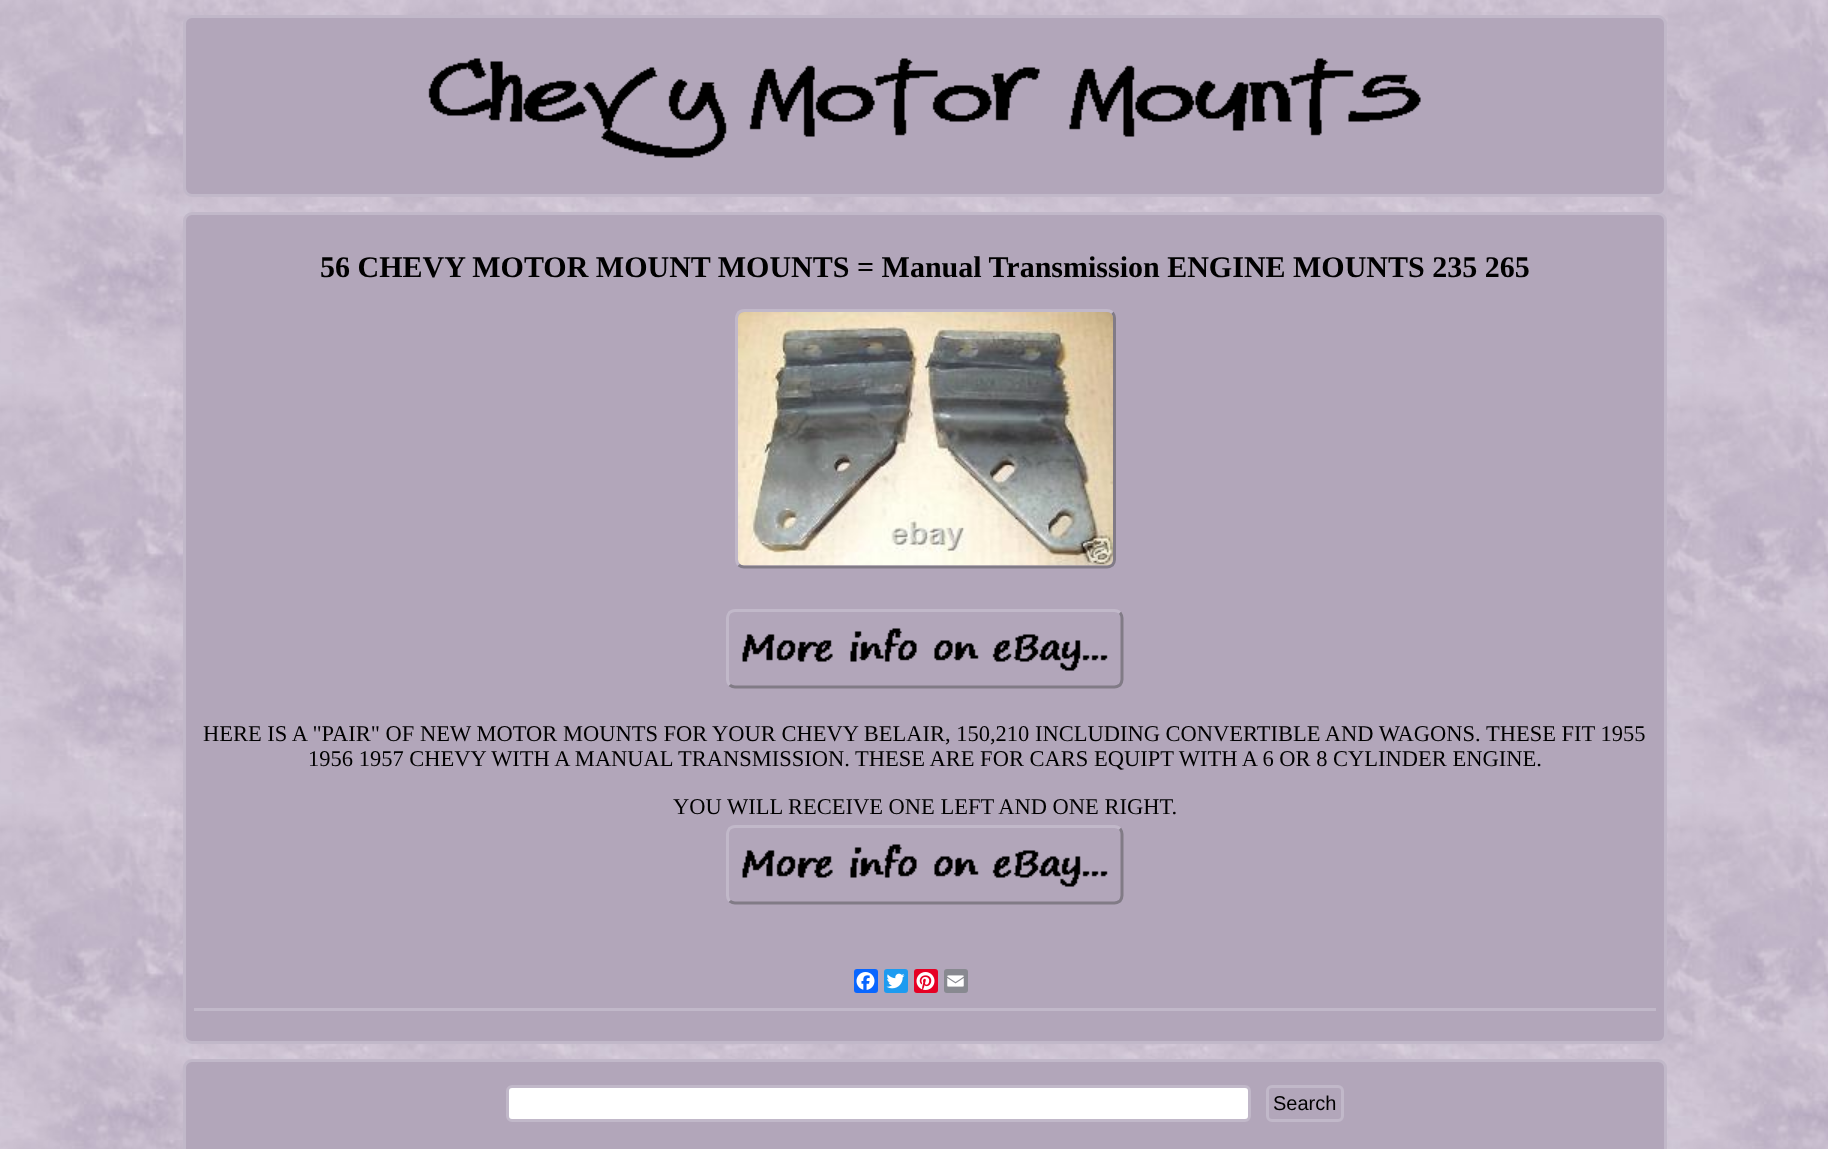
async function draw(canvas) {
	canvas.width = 1828;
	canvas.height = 1149;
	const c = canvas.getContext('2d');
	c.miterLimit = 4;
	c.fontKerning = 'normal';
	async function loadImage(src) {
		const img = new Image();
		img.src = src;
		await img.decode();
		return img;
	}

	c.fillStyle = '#fff';
	c.fillRect(0, 0, 1828, 1149);
	c.drawImage(await loadImage('img1.png'), 0, 0, 1828, 1149);
	c.fillStyle = '#b2a6ba';
	c.beginPath();
	c.roundRect(184.5, 16.5, 1481, 179, 7.5);
	c.fill();
	c.strokeStyle = '#c1b8c9';
	c.lineWidth = 3;
	c.stroke();
	c.drawImage(await loadImage('img2.png'), 428, 58, 993, 100);
	c.beginPath();
	c.roundRect(184.5, 213.5, 1481, 829, 7.5);
	c.fill();
	c.stroke();
	c.font = 'bold 30px Liberation Serif';
	c.fillStyle = '#000';
	c.fillText('56 CHEVY MOTOR MOUNT MOUNTS = Manual Transmission ENGINE MOUNTS 235 265', 320, 277);
	c.beginPath();
	c.moveTo(1112.5, 312.5);
	c.bezierCurveTo(1113.5, 314, 1114.5, 316, 1114.5, 318);
	c.lineTo(1114.5, 559.5);
	c.bezierCurveTo(1114.5, 561.5, 1113.5, 563.5, 1112.5, 565);
	c.bezierCurveTo(1111, 566, 1109, 567, 1107, 567);
	c.lineTo(744, 567);
	c.bezierCurveTo(742, 567, 740, 566, 738.5, 565);
	c.strokeStyle = '#817b86';
	c.stroke();
	c.beginPath();
	c.moveTo(738.5, 565);
	c.bezierCurveTo(737.5, 563.5, 736.5, 561.5, 736.5, 559.5);
	c.lineTo(736.5, 318);
	c.bezierCurveTo(736.5, 316, 737.5, 314, 738.5, 312.5);
	c.bezierCurveTo(740, 311.5, 742, 310.5, 744, 310.5);
	c.lineTo(1107, 310.5);
	c.bezierCurveTo(1109, 310.5, 1111, 311.5, 1112.5, 312.5);
	c.strokeStyle = '#c1b8c9';
	c.stroke();
	c.drawImage(await loadImage('img3.png'), 738, 312, 375, 254);
	c.beginPath();
	c.moveTo(1120, 612.5);
	c.bezierCurveTo(1121, 614, 1122, 616, 1122, 618);
	c.lineTo(1122, 679.5);
	c.bezierCurveTo(1122, 681.5, 1121, 683.5, 1120, 685);
	c.bezierCurveTo(1118.5, 686, 1116.5, 687, 1114.5, 687);
	c.lineTo(735, 687);
	c.bezierCurveTo(733, 687, 731, 686, 729.5, 685);
	c.strokeStyle = '#817b86';
	c.stroke();
	c.beginPath();
	c.moveTo(729.5, 685);
	c.bezierCurveTo(728.5, 683.5, 727.5, 681.5, 727.5, 679.5);
	c.lineTo(727.5, 618);
	c.bezierCurveTo(727.5, 616, 728.5, 614, 729.5, 612.5);
	c.bezierCurveTo(731, 611.5, 733, 610.5, 735, 610.5);
	c.lineTo(1114.5, 610.5);
	c.bezierCurveTo(1116.5, 610.5, 1118.5, 611.5, 1120, 612.5);
	c.strokeStyle = '#c1b8c9';
	c.stroke();
	c.drawImage(await loadImage('img4.png'), 742, 628, 366, 43);
	c.font = '22.5px Liberation Serif';
	for (const [text, x, y] of [
		['HERE IS A "PAIR" OF NEW MOTOR MOUNTS FOR YOUR CHEVY BELAIR, 150,210 INCLUDING CONVERTIBLE AND WAGONS. THESE FIT 1955', 203, 741],
		['1956 1957 CHEVY WITH A MANUAL TRANSMISSION. THESE ARE FOR CARS EQUIPT WITH A 6 OR 8 CYLINDER ENGINE.', 308, 766],
		['YOU WILL RECEIVE ONE LEFT AND ONE RIGHT.', 673, 814],
	]) {
		c.fillText(text, x, y);
	}
	c.beginPath();
	c.moveTo(1120, 828.5);
	c.bezierCurveTo(1121, 830, 1122, 832, 1122, 834);
	c.lineTo(1122, 895.5);
	c.bezierCurveTo(1122, 897.5, 1121, 899.5, 1120, 901);
	c.bezierCurveTo(1118.5, 902, 1116.5, 903, 1114.5, 903);
	c.lineTo(735, 903);
	c.bezierCurveTo(733, 903, 731, 902, 729.5, 901);
	c.strokeStyle = '#817b86';
	c.stroke();
	c.beginPath();
	c.moveTo(729.5, 901);
	c.bezierCurveTo(728.5, 899.5, 727.5, 897.5, 727.5, 895.5);
	c.lineTo(727.5, 834);
	c.bezierCurveTo(727.5, 832, 728.5, 830, 729.5, 828.5);
	c.bezierCurveTo(731, 827.5, 733, 826.5, 735, 826.5);
	c.lineTo(1114.5, 826.5);
	c.bezierCurveTo(1116.5, 826.5, 1118.5, 827.5, 1120, 828.5);
	c.strokeStyle = '#c1b8c9';
	c.stroke();
	c.drawImage(await loadImage('img4.png'), 742, 844, 366, 43);
	c.fillStyle = '#0866ff';
	c.beginPath();
	c.roundRect(854, 969, 24, 24, 3);
	c.fill();
	c.drawImage(await loadImage('img5.png'), 856, 972, 19, 18);
	c.fillStyle = '#1d9bf0';
	c.beginPath();
	c.roundRect(884, 969, 24, 24, 3);
	c.fill();
	c.drawImage(await loadImage('img6.png'), 886, 973, 19, 16);
	c.fillStyle = '#e60023';
	c.beginPath();
	c.roundRect(914, 969, 24, 24, 3);
	c.fill();
	c.drawImage(await loadImage('img7.png'), 916, 972, 19, 18);
	c.fillStyle = '#888990';
	c.beginPath();
	c.roundRect(944, 969, 24, 24, 3);
	c.fill();
	c.drawImage(await loadImage('img8.png'), 947, 975, 17, 12);
	c.fillStyle = '#c1b8c9';
	c.fillRect(194, 1008, 1462, 3);
	c.fillStyle = '#b2a6ba';
	c.beginPath();
	c.roundRect(184.5, 1060.5, 1481, 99, 7.5);
	c.fill();
	c.stroke();
	c.fillStyle = '#fff';
	c.beginPath();
	c.roundRect(507.5, 1086.5, 742, 34, 4.5);
	c.fill();
	c.stroke();
	c.beginPath();
	c.roundRect(1267.5, 1086.5, 75, 34, 4.5);
	c.stroke();
	c.font = '20px Liberation Sans';
	c.fillStyle = '#000';
	c.fillText('Search', 1273, 1110);
}

draw(document.querySelector('canvas'));
